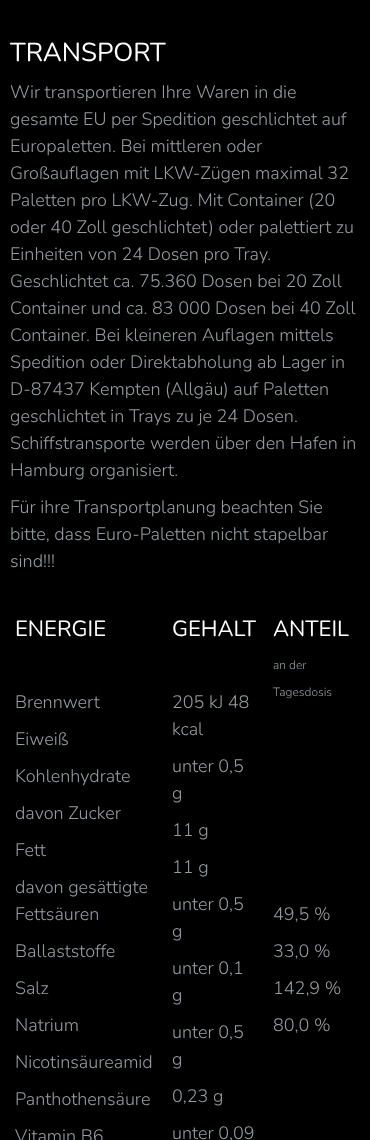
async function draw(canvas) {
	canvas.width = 370;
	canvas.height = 1140;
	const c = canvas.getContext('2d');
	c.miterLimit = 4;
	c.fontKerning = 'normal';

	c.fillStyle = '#000';
	c.fillRect(0, 0, 370, 1140);
	c.font = '26px Nunito';
	c.fillStyle = '#fff';
	c.fillText('TRANSPORT', 10, 61);
	c.font = '300 18px Nunito';
	c.fillStyle = '#959ca0';
	for (const [text, x, y] of [
		['Wir transportieren Ihre Waren in die', 10, 98],
		['gesamte EU per Spedition geschlichtet auf', 10, 125],
		['Europaletten. Bei mittleren oder', 10, 152],
		['Großauflagen mit LKW-Zügen maximal 32', 10, 179],
		['Paletten pro LKW-Zug. Mit Container (20', 10, 206],
		['oder 40 Zoll geschlichtet) oder palettiert zu', 10, 233],
		['Einheiten von 24 Dosen pro Tray.', 10, 260],
		['Geschlichtet ca. 75.360 Dosen bei 20 Zoll', 10, 287],
		['Container und ca. 83 000 Dosen bei 40 Zoll', 10, 314],
		['Container. Bei kleineren Auflagen mittels', 10, 341],
		['Spedition oder Direktabholung ab Lager in', 10, 368],
		['D-87437 Kempten (Allgäu) auf Paletten', 10, 395],
		['geschlichtet in Trays zu je 24 Dosen.', 10, 422],
		['Schiffstransporte werden über den Hafen in', 10, 449],
		['Hamburg organisiert.', 10, 476],
		['Für ihre Transportplanung beachten Sie', 10, 513],
		['bitte, dass Euro-Paletten nicht stapelbar', 10, 540],
		['sind!!!', 10, 567],
	]) {
		c.fillText(text, x, y);
	}
	c.font = '22px Nunito';
	c.fillStyle = '#fff';
	c.fillText('ENERGIE', 15, 636);
	c.font = '300 18px Nunito';
	c.fillStyle = '#959ca0';
	for (const [text, x, y] of [
		['Brennwert', 15, 708],
		['Eiweiß', 15, 745],
		['Kohlenhydrate', 15, 782],
		['davon Zucker', 15, 819],
		['Fett', 15, 856],
		['davon gesättigte', 15, 893],
		['Fettsäuren', 15, 920],
		['Ballaststoffe', 15, 957],
		['Salz', 15, 994],
		['Natrium', 15, 1031],
		['Nicotinsäureamid', 15, 1068],
		['Panthothensäure', 15, 1105],
		['Vitamin B6', 15, 1142],
	]) {
		c.fillText(text, x, y);
	}
	c.font = '22px Nunito';
	c.fillStyle = '#fff';
	c.fillText('GEHALT', 172, 636);
	c.font = '300 18px Nunito';
	c.fillStyle = '#959ca0';
	for (const [text, x, y] of [
		['205 kJ 48', 172, 708],
		['kcal', 172, 735],
		['unter 0,5', 172, 772],
		['g', 172, 799],
		['11 g', 172, 836],
		['11 g', 172, 873],
		['unter 0,5', 172, 910],
		['g', 172, 937],
		['unter 0,1', 172, 974],
		['g', 172, 1001],
		['unter 0,5', 172, 1038],
		['g', 172, 1065],
		['0,23 g', 172, 1102],
		['unter 0,09', 172, 1139],
	]) {
		c.fillText(text, x, y);
	}
	c.font = '22px Nunito';
	c.fillStyle = '#fff';
	c.fillText('ANTEIL', 273, 636);
	c.font = '300 12px Nunito';
	c.fillStyle = '#959ca0';
	c.fillText('an der', 273, 669);
	c.fillText('Tagesdosis', 273, 696);
	c.font = '300 18px Nunito';
	for (const [text, x, y] of [
		['49,5 %', 273, 920],
		['33,0 %', 273, 957],
		['142,9 %', 273, 994],
		['80,0 %', 273, 1031],
	]) {
		c.fillText(text, x, y);
	}
}

draw(document.querySelector('canvas'));
